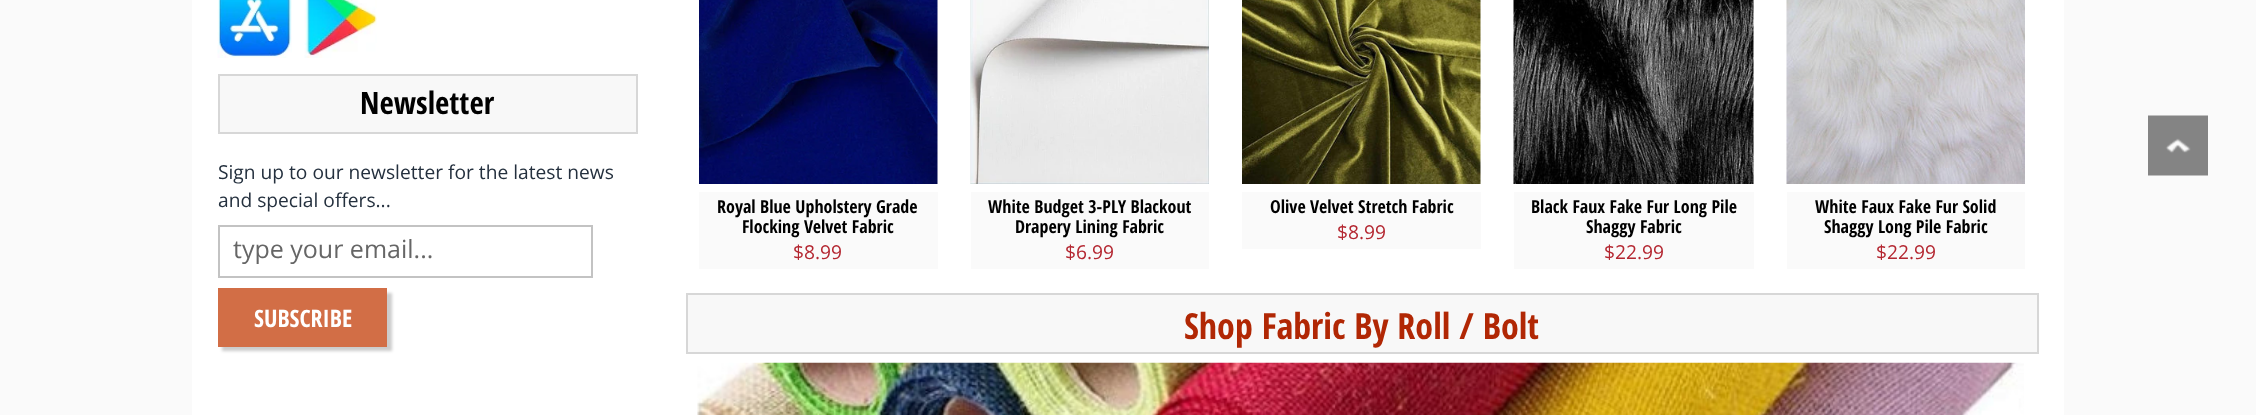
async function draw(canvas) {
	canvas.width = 2256;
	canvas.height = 415;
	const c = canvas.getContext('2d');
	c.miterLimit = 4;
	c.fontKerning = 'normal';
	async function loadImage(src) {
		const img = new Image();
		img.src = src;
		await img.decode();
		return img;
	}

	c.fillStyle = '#fafafa';
	c.fillRect(0, 0, 2256, 415);
	c.fillStyle = '#fff';
	c.fillRect(192, 0, 1872, 415);
	c.drawImage(await loadImage('img1.png'), 217, 0, 75, 58);
	c.drawImage(await loadImage('img2.png'), 304, 0, 73, 58);
	c.fillStyle = '#f8f8f8';
	c.beginPath();
	c.rect(219, 75, 418, 58);
	c.fill();
	c.strokeStyle = '#d7d7d7';
	c.lineWidth = 2;
	c.stroke();
	c.font = 'bold 31px Open Sans Condensed';
	c.fillStyle = '#000';
	c.fillText('Newsletter', 360, 114);
	c.font = '19.2px Open Sans';
	c.fillStyle = '#24303e';
	c.fillText('Sign up to our newsletter for the latest news', 218, 179);
	c.fillText('and special offers...', 218, 207);
	c.strokeStyle = '#c3c3c3';
	c.strokeRect(219, 226, 373, 51);
	c.font = '25px Open Sans';
	c.fillStyle = '#666';
	c.fillText('type your email...', 233, 258);
	c.fillStyle = '#00000033';
	c.filter = 'blur(1.5px)';
	c.beginPath();
	c.rect(222, 293, 170, 58);
	c.fill();
	c.filter = 'none';
	c.fillStyle = '#d26e46';
	c.fillRect(218, 288, 169, 59);
	c.font = 'bold 24px Open Sans Condensed';
	c.fillStyle = '#fff';
	c.fillText('SUBSCRIBE', 254, 327);
	c.drawImage(await loadImage('img3.png'), 699, 0, 239, 184);
	c.fillStyle = '#fafafa';
	c.fillRect(699, 192, 239, 77);
	c.font = 'bold 18px Open Sans Condensed';
	c.fillStyle = '#000';
	c.fillText('Royal Blue Upholstery Grade', 717, 213);
	c.fillText('Flocking Velvet Fabric', 742, 233);
	c.font = '19.2px Open Sans';
	c.fillStyle = '#b42731';
	c.fillText('$8.99', 793, 259);
	c.drawImage(await loadImage('img4.png'), 970, 0, 239, 184);
	c.fillStyle = '#fafafa';
	c.fillRect(971, 192, 238, 77);
	c.font = 'bold 18px Open Sans Condensed';
	c.fillStyle = '#000';
	c.fillText('White Budget 3-PLY Blackout', 988, 213);
	c.fillText('Drapery Lining Fabric', 1015, 233);
	c.font = '19.2px Open Sans';
	c.fillStyle = '#b42731';
	c.fillText('$6.99', 1065, 259);
	c.drawImage(await loadImage('img5.png'), 1242, 0, 239, 184);
	c.fillStyle = '#fafafa';
	c.fillRect(1242, 192, 239, 57);
	c.font = 'bold 18px Open Sans Condensed';
	c.fillStyle = '#000';
	c.fillText('Olive Velvet Stretch Fabric', 1270, 213);
	c.font = '19.2px Open Sans';
	c.fillStyle = '#b42731';
	c.fillText('$8.99', 1337, 239);
	c.drawImage(await loadImage('img6.png'), 1513, 0, 241, 184);
	c.fillStyle = '#fafafa';
	c.fillRect(1514, 192, 240, 77);
	c.font = 'bold 18px Open Sans Condensed';
	c.fillStyle = '#000';
	c.fillText('Black Faux Fake Fur Long Pile', 1531, 213);
	c.fillText('Shaggy Fabric', 1586, 233);
	c.font = '19.2px Open Sans';
	c.fillStyle = '#b42731';
	c.fillText('$22.99', 1604, 259);
	c.drawImage(await loadImage('img7.png'), 1786, 0, 239, 184);
	c.fillStyle = '#fafafa';
	c.fillRect(1787, 192, 238, 77);
	c.font = 'bold 18px Open Sans Condensed';
	c.fillStyle = '#000';
	c.fillText('White Faux Fake Fur Solid', 1815, 213);
	c.fillText('Shaggy Long Pile Fabric', 1824, 233);
	c.font = '19.2px Open Sans';
	c.fillStyle = '#b42731';
	c.fillText('$22.99', 1876, 259);
	c.fillStyle = '#f8f8f8';
	c.beginPath();
	c.rect(687, 294, 1351, 59);
	c.fill();
	c.strokeStyle = '#d7d7d7';
	c.stroke();
	c.font = 'bold 36px Open Sans Condensed';
	c.fillStyle = '#b12704';
	c.fillText('Shop Fabric By Roll / Bolt', 1184, 339);
	c.drawImage(await loadImage('img8.png'), 697, 362, 1327, 53);
	c.drawImage(await loadImage('img9.png'), 2148, 115, 60, 61);
}

draw(document.querySelector('canvas'));
